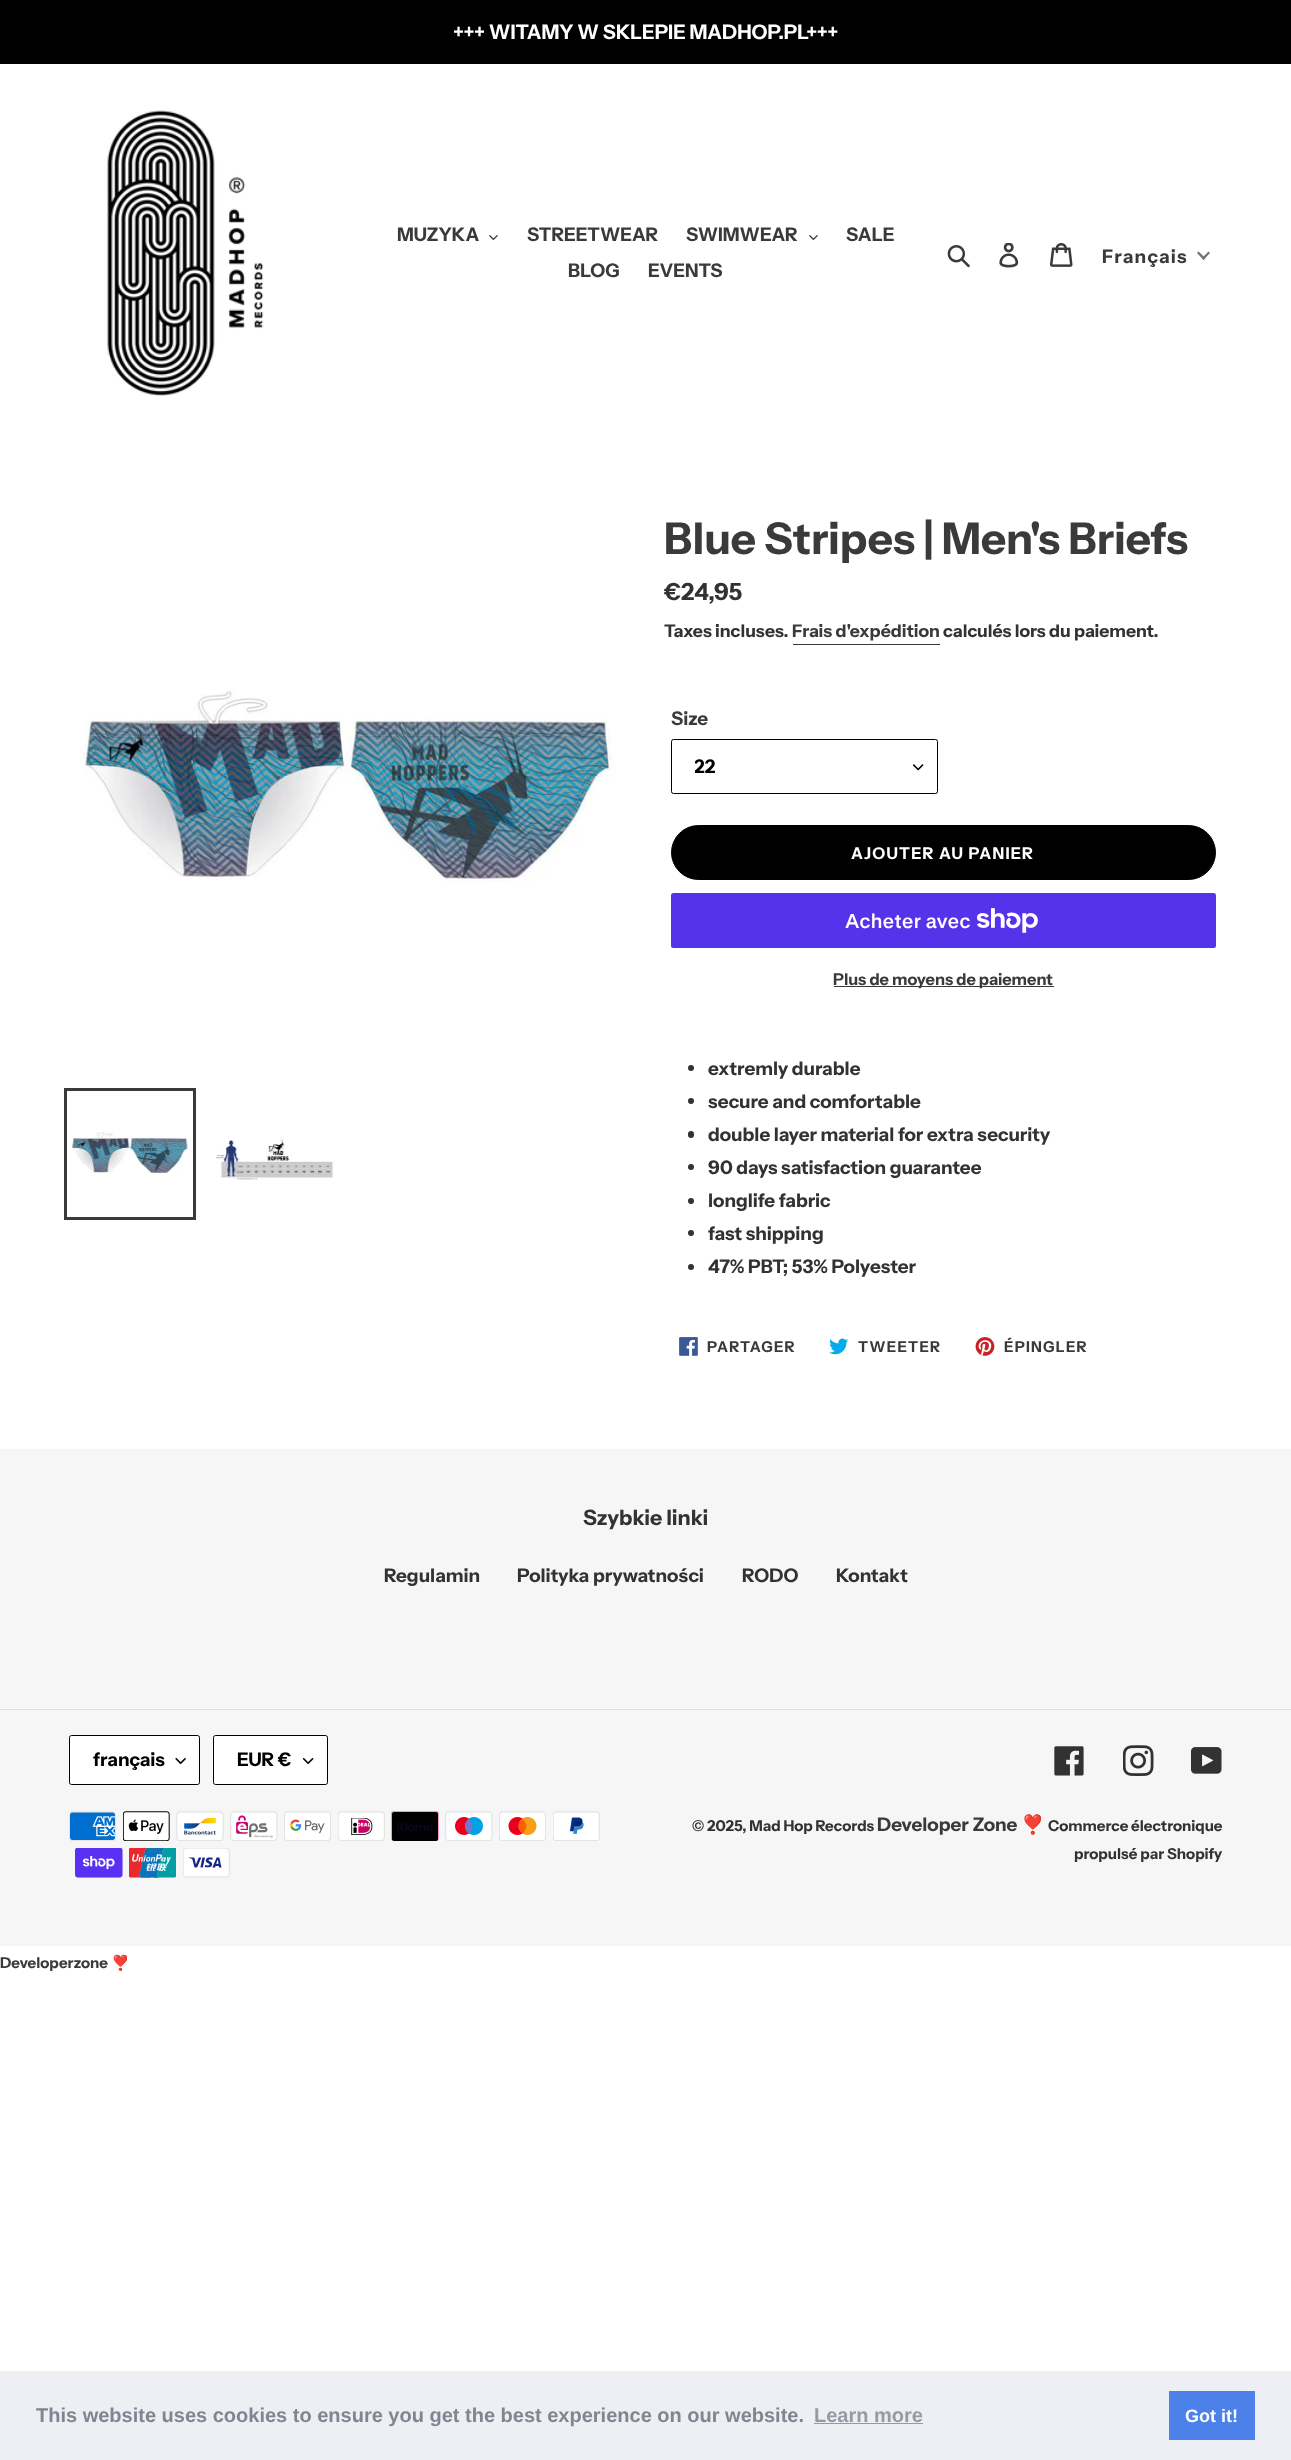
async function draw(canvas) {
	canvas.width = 1291;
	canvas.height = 2460;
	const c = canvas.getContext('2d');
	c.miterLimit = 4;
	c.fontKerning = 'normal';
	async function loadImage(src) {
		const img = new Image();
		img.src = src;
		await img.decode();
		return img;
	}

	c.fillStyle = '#fff';
	c.fillRect(0, 0, 1291, 2460);
	c.fillStyle = '#000';
	c.fillRect(0, 0, 1291, 64);
	c.font = 'bold 20px Instrument Sans';
	c.fillStyle = '#fff';
	c.fillText('+++ WITAMY W SKLEPIE MADHOP.PL+++', 453, 39);
	c.drawImage(await loadImage('img1.png'), 107, 110, 157, 286);
	c.font = 'bold 18.75px Instrument Sans';
	c.fillStyle = '#3a3a3a';
	c.fillText('MUZYKA', 397, 241);
	c.drawImage(await loadImage('img2.png'), 489, 235, 9, 5);
	c.fillText('STREETWEAR', 527, 241);
	c.fillText('SWIMWEAR', 686, 241);
	c.drawImage(await loadImage('img2.png'), 809, 235, 9, 5);
	for (const [text, x, y] of [
		['SALE', 846, 241],
		['BLOG', 568, 277],
		['EVENTS', 648, 277],
	]) {
		c.fillText(text, x, y);
	}
	c.drawImage(await loadImage('img3.png'), 947, 245, 23, 23);
	c.drawImage(await loadImage('img4.png'), 999, 243, 20, 25);
	c.drawImage(await loadImage('img5.png'), 1050, 243, 23, 24);
	c.letterSpacing = '1.25px';
	c.fillText('Français', 1102, 263);
	c.fillStyle = '#747474';
	c.beginPath();
	c.moveTo(1208.5, 251.5);
	c.lineTo(1210, 253);
	c.lineTo(1203.5, 260);
	c.lineTo(1202, 258);
	c.closePath();
	c.fill();
	c.beginPath();
	c.moveTo(1198.5, 251.5);
	c.lineTo(1205.5, 258);
	c.lineTo(1203.5, 260);
	c.lineTo(1197, 253);
	c.closePath();
	c.fill();
	c.drawImage(await loadImage('img6.png'), 83, 691, 531, 192);
	c.strokeStyle = '#3a3a3a';
	c.lineWidth = 3;
	c.strokeRect(65.5, 1089.5, 129, 129);
	c.drawImage(await loadImage('img7.png'), 71, 1131, 117, 42);
	c.drawImage(await loadImage('img8.png'), 216, 1137, 118, 43);
	c.letterSpacing = '0px';
	c.font = 'bold 43.75px Instrument Sans';
	c.fillStyle = '#3a3a3a';
	c.fillText('Blue Stripes | Men\'s Briefs', 664, 554);
	c.font = 'bold 23.5px Instrument Sans';
	c.fillStyle = '#333232';
	c.fillText('€24,95', 664, 600);
	c.font = 'bold 17.5px Instrument Sans';
	c.fillText('Taxes incluses.', 664, 637);
	c.fillStyle = '#3a3a3a';
	c.fillText('Frais d\'expédition', 792, 637);
	c.fillRect(793, 644, 147, 1);
	c.fillStyle = '#333232';
	c.fillText('calculés lors du paiement.', 943, 637);
	c.font = 'bold 18.75px Instrument Sans';
	c.fillStyle = '#3a3a3a';
	c.fillText('Size', 671, 725);
	c.drawImage(await loadImage('img9.png'), 913, 764, 11, 7);
	c.beginPath();
	c.roundRect(671.5, 739.5, 266, 54, 2);
	c.strokeStyle = '#000';
	c.lineWidth = 1;
	c.stroke();
	c.save();
	c.beginPath();
	c.rect(695, 755, 206, 23);
	c.clip();
	c.fillStyle = '#000';
	c.fillText('22', 694, 773);
	c.restore();
	c.fillStyle = '#000';
	c.beginPath();
	c.roundRect(671.5, 825.5, 544, 54, 27);
	c.fill();
	c.stroke();
	c.letterSpacing = '1.25px';
	c.font = 'bold 16.25px Instrument Sans';
	c.fillStyle = '#fff';
	c.fillText('AJOUTER AU PANIER', 851, 859);
	c.fillStyle = '#5433eb';
	c.beginPath();
	c.roundRect(671, 893, 545, 55, 2.5);
	c.fill();
	c.letterSpacing = '0px';
	c.font = '600 20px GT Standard';
	c.fillStyle = '#fff';
	c.fillText('Acheter avec', 845, 928);
	c.drawImage(await loadImage('img10.png'), 976, 908, 62, 25);
	c.fillStyle = '#3a3a3a';
	c.fillRect(834, 986, 220, 1);
	c.font = 'bold 16.25px Instrument Sans';
	c.fillText('Plus de moyens de paiement', 833, 985);
	c.fillStyle = '#333232';
	c.beginPath();
	c.arc(691, 1068, 3, 0, 2 * Math.PI);
	c.fill();
	c.font = 'bold 18.75px Instrument Sans';
	c.fillText('extremly durable', 708, 1075);
	c.beginPath();
	c.arc(691, 1101, 3, 0, 2 * Math.PI);
	c.fill();
	c.fillText('secure and comfortable', 708, 1108);
	c.beginPath();
	c.roundRect(688, 1131, 6, 7, 3);
	c.fill();
	c.fillText('double layer material for extra security', 708, 1141);
	c.beginPath();
	c.arc(691, 1167, 3, 0, 2 * Math.PI);
	c.fill();
	c.fillText('90 days satisfaction guarantee', 708, 1174);
	c.beginPath();
	c.arc(691, 1201, 3, 0, 2 * Math.PI);
	c.fill();
	c.fillText('longlife fabric', 708, 1207);
	c.beginPath();
	c.arc(691, 1233, 3, 0, 2 * Math.PI);
	c.fill();
	c.fillText('fast shipping', 708, 1240);
	c.beginPath();
	c.arc(691, 1267, 3, 0, 2 * Math.PI);
	c.fill();
	c.fillText('47% PBT; 53% Polyester', 708, 1273);
	c.drawImage(await loadImage('img11.png'), 679, 1337, 19, 19);
	c.letterSpacing = '1.25px';
	c.font = 'bold 15px Instrument Sans';
	c.fillStyle = '#3a3a3a';
	c.fillText('PARTAGER', 707, 1352);
	c.drawImage(await loadImage('img12.png'), 829, 1338, 20, 17);
	c.fillText('TWEETER', 858, 1352);
	c.drawImage(await loadImage('img13.png'), 975, 1337, 20, 19);
	c.fillText('ÉPINGLER', 1004, 1352);
	c.fillStyle = '#f6f6f6';
	c.fillRect(0, 1449, 1291, 497);
	c.letterSpacing = '0px';
	c.font = 'bold 21.25px Instrument Sans';
	c.fillStyle = '#333232';
	c.fillText('Szybkie linki', 583, 1525);
	c.font = 'bold 18.75px Instrument Sans';
	for (const [text, x, y] of [
		['Regulamin', 384, 1582],
		['Polityka prywatności', 517, 1582],
		['RODO', 742, 1582],
		['Kontakt', 836, 1582],
	]) {
		c.fillText(text, x, y);
	}
	c.fillStyle = '#ddd';
	c.fillRect(0, 1709, 1291, 1);
	c.fillStyle = '#fff';
	c.beginPath();
	c.roundRect(69, 1735, 131, 50, 2.5);
	c.fill();
	c.drawImage(await loadImage('img14.png'), 175, 1758, 11, 6);
	c.beginPath();
	c.roundRect(69.5, 1735.5, 130, 49, 2);
	c.stroke();
	c.fillStyle = '#000';
	c.fillText('français', 93, 1766);
	c.fillStyle = '#fff';
	c.beginPath();
	c.roundRect(213, 1735, 115, 50, 2.5);
	c.fill();
	c.drawImage(await loadImage('img15.png'), 303, 1758, 11, 6);
	c.beginPath();
	c.roundRect(213.5, 1735.5, 114, 49, 2);
	c.stroke();
	c.fillStyle = '#000';
	c.fillText('EUR €', 237, 1766);
	c.drawImage(await loadImage('img16.png'), 1054, 1746, 30, 30);
	c.drawImage(await loadImage('img17.png'), 1123, 1745, 31, 31);
	c.drawImage(await loadImage('img18.png'), 1191, 1747, 31, 27);
	c.drawImage(await loadImage('img19.png'), 69, 1811, 47, 30);
	c.drawImage(await loadImage('img20.png'), 123, 1811, 47, 30);
	c.drawImage(await loadImage('img21.png'), 176, 1811, 48, 30);
	c.drawImage(await loadImage('img22.png'), 230, 1811, 48, 30);
	c.drawImage(await loadImage('img23.png'), 284, 1811, 47, 30);
	c.drawImage(await loadImage('img24.png'), 338, 1811, 47, 30);
	c.drawImage(await loadImage('img25.png'), 391, 1811, 48, 30);
	c.drawImage(await loadImage('img26.png'), 445, 1811, 48, 30);
	c.drawImage(await loadImage('img27.png'), 499, 1811, 47, 30);
	c.drawImage(await loadImage('img28.png'), 553, 1811, 47, 30);
	c.drawImage(await loadImage('img29.png'), 75, 1848, 48, 30);
	c.drawImage(await loadImage('img30.png'), 129, 1848, 47, 30);
	c.drawImage(await loadImage('img31.png'), 183, 1848, 47, 30);
	c.font = 'bold 15px Instrument Sans';
	c.fillStyle = '#333232';
	c.fillText('© 2025, Mad Hop Records', 692, 1831);
	c.font = 'bold 18.75px Instrument Sans';
	c.fillStyle = '#3a3a3a';
	c.fillText('Developer Zone', 877, 1831);
	c.font = 'bold 18.75px Noto Color Emoji';
	c.fillText('❣️', 1021, 1831);
	c.font = 'bold 15px Instrument Sans';
	c.fillStyle = '#333232';
	c.fillText('Commerce électronique', 1048, 1831);
	c.fillText('propulsé par Shopify', 1074, 1859);
	c.fillStyle = '#3a3a3a';
	c.fillText('Developerzone', 0, 1968);
	c.font = 'bold 15px Noto Color Emoji';
	c.fillText('❣️', 111, 1968);
	c.fillStyle = '#edeff5';
	c.fillRect(0, 2371, 1291, 89);
	c.font = 'bold 20px Liberation Sans';
	c.fillStyle = '#838391';
	c.fillText('This website uses cookies to ensure you get the best experience on our website.', 36, 2422);
	c.fillStyle = '#9899a5';
	c.fillText('Learn more', 814, 2422);
	c.fillRect(814, 2423, 109, 1);
	c.fillStyle = '#4b81e8';
	c.fillRect(1169, 2391, 86, 49);
	c.font = 'bold 18px Liberation Sans';
	c.fillStyle = '#fff';
	c.fillText('Got it!', 1185, 2422);
}

draw(document.querySelector('canvas'));
